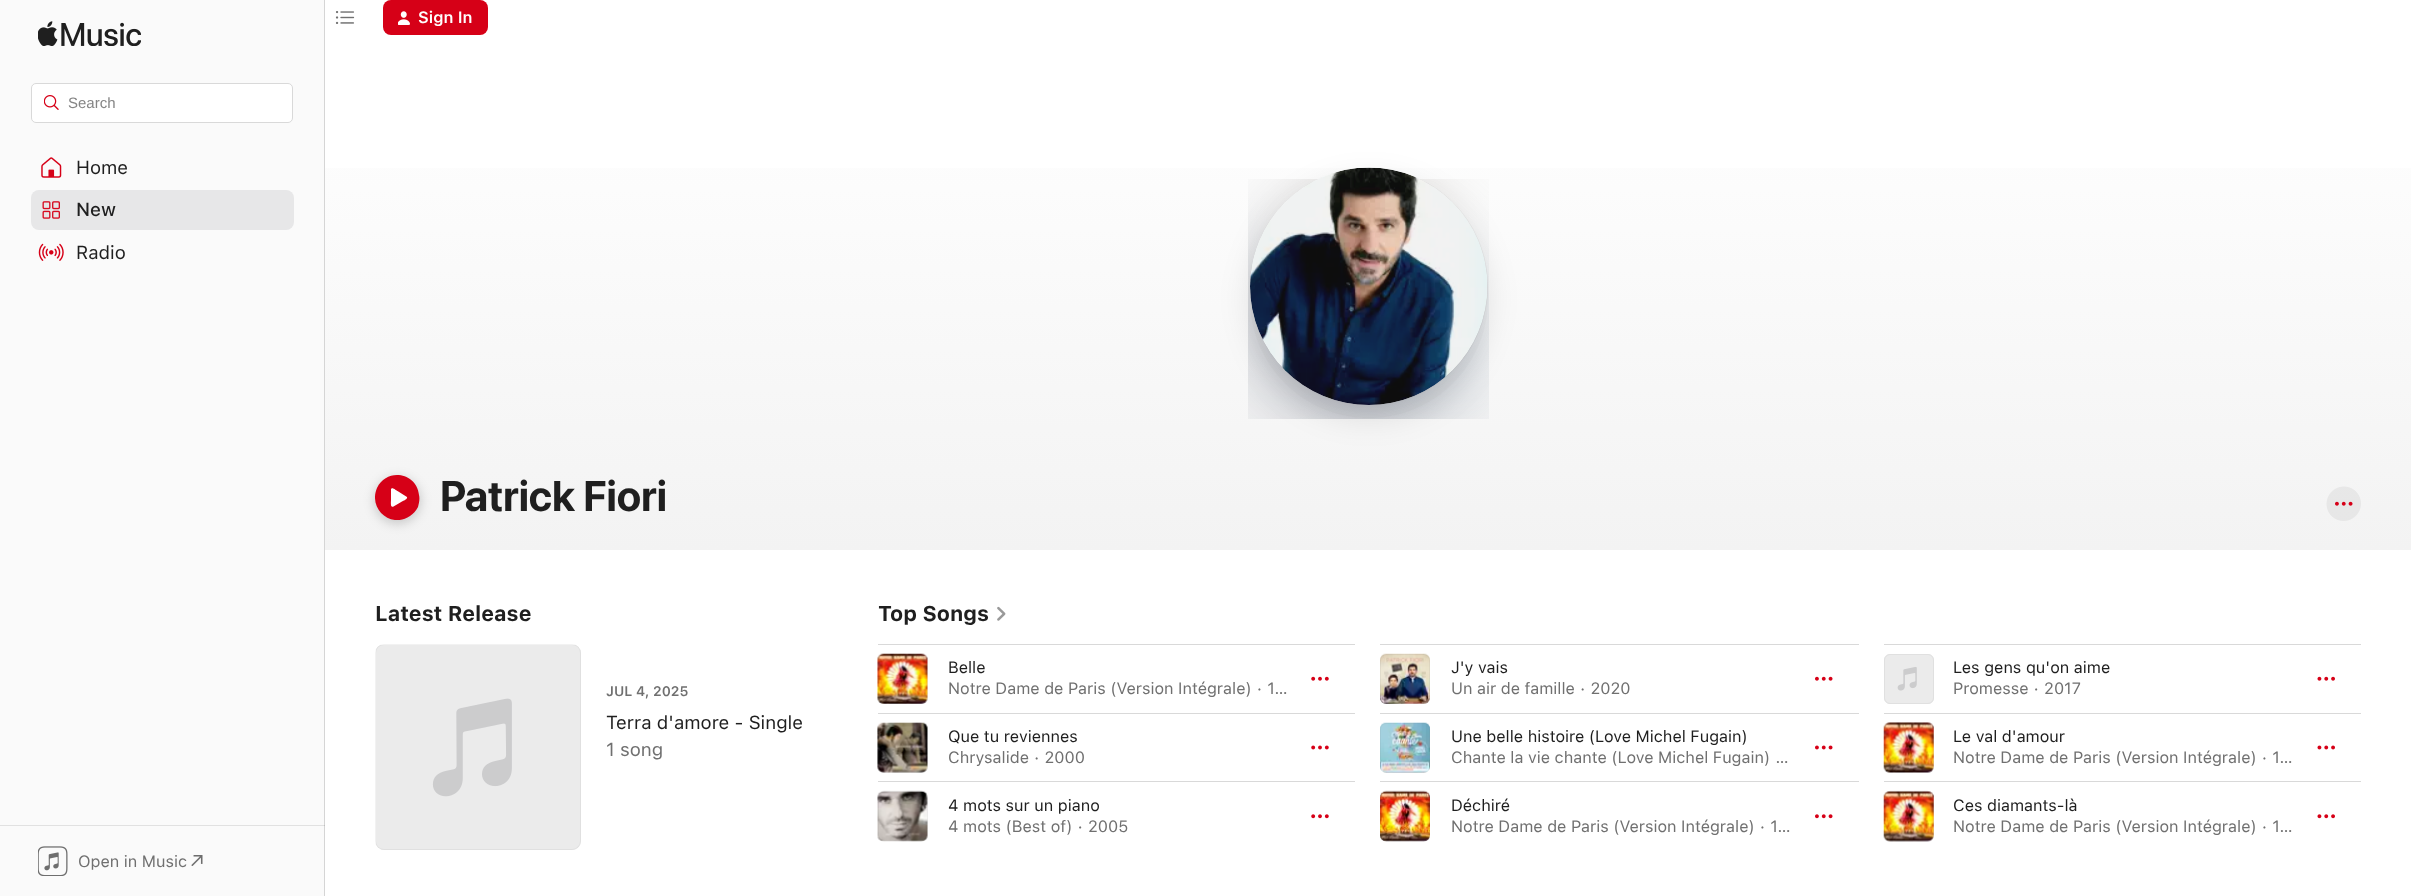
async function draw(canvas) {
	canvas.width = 2411;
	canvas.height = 896;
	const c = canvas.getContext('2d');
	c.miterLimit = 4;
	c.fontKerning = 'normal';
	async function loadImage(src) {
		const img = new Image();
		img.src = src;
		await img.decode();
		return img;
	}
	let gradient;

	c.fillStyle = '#fff';
	c.fillRect(0, 0, 2411, 896);
	c.drawImage(await loadImage('img1.png'), 335, 11, 20, 13);
	c.fillStyle = '#d60017';
	c.beginPath();
	c.roundRect(383, 0, 105, 35, 8);
	c.fill();
	c.drawImage(await loadImage('img2.png'), 398, 11, 12, 14);
	c.font = '600 16.25px SF';
	c.fillStyle = '#fff';
	c.fillText('Sign In', 418, 23);
	for (const [x, y, w, h, color] of [
		[0, 0, 324, 896, '#fafafa'],
		[0, 825, 325, 1, '#e1e1e1'],
		[324, 0, 1, 896, '#d5d5d5'],
		[324, 825, 1, 1, '#c0c0c0'],
	]) {
		c.fillStyle = color;
		c.fillRect(x, y, w, h);
	}
	c.drawImage(await loadImage('img3.png'), 38, 21, 103, 25);
	c.fillStyle = '#fff';
	c.beginPath();
	c.roundRect(31.5, 83.5, 261, 39, 4.5);
	c.fill();
	c.strokeStyle = '#d9d9d9';
	c.stroke();
	c.drawImage(await loadImage('img4.png'), 44, 95, 15, 15);
	c.font = '15px Liberation Sans';
	c.fillStyle = '#858585';
	c.fillText('Search', 68, 108);
	c.drawImage(await loadImage('img5.png'), 41, 157, 21, 21);
	c.font = '18.75px SF';
	c.fillStyle = '#1f1f1f';
	c.fillText('Home', 76, 174);
	c.fillStyle = '#e7e7e8';
	c.beginPath();
	c.roundRect(31, 190, 263, 40, 8);
	c.fill();
	c.drawImage(await loadImage('img6.png'), 42, 201, 18, 18);
	c.font = '500 18.75px SF';
	c.fillStyle = '#1f1f1f';
	c.fillText('New', 76, 216);
	c.drawImage(await loadImage('img7.png'), 38, 243, 26, 18);
	c.font = '18.75px SF';
	c.fillText('Radio', 76, 259);
	c.drawImage(await loadImage('img8.png'), 38, 846, 30, 30);
	c.font = '16.25px SF';
	c.fillStyle = '#707070';
	c.fillText('Open in Music', 78, 867);
	c.drawImage(await loadImage('img9.png'), 191, 855, 12, 11);
	gradient = c.createLinearGradient(1368, 67, 1368, 550);
	gradient.addColorStop(0, '#fff');
	gradient.addColorStop(1, '#f3f3f3');
	c.fillStyle = gradient;
	c.fillRect(325, 168, 2086, 382);
	c.fillStyle = '#0000001a';
	c.filter = 'blur(15.5px)';
	c.beginPath();
	c.roundRect(1250, 180, 238, 238, 119);
	c.fill();
	c.filter = 'none';
	c.drawImage(await loadImage('img11.png'), 1248, 179, 241, 240);
	c.fillStyle = '#8080800a';
	c.beginPath();
	c.moveTo(1369, 180);
	c.bezierCurveTo(1435, 180, 1488, 233, 1488, 299);
	c.bezierCurveTo(1488, 365, 1435, 418, 1369, 418);
	c.bezierCurveTo(1303, 418, 1250, 365, 1250, 299);
	c.bezierCurveTo(1250, 233, 1303, 180, 1369, 180);
	c.closePath();
	c.fill();
	c.drawImage(await loadImage('img10.png'), 1250, 167, 237, 238);
	c.fillStyle = '#8080801a';
	c.beginPath();
	c.moveTo(1368, 168);
	c.lineTo(1370, 168);
	c.bezierCurveTo(1435, 168, 1488, 221, 1488, 286);
	c.bezierCurveTo(1488, 352, 1435, 405, 1370, 405);
	c.lineTo(1368, 405);
	c.bezierCurveTo(1303, 405, 1250, 352, 1250, 286);
	c.bezierCurveTo(1250, 221, 1303, 168, 1368, 168);
	c.closePath();
	c.fill();
	c.fillStyle = '#00000033';
	c.filter = 'blur(6px)';
	c.beginPath();
	c.roundRect(375, 478, 45, 45, 22.5);
	c.fill();
	c.filter = 'none';
	c.save();
	c.beginPath();
	c.rect(375, 475, 45, 45);
	c.clip();
	c.fillStyle = '#d60017';
	c.beginPath();
	c.moveTo(377, 488);
	c.bezierCurveTo(387, 467, 417, 473, 419, 495);
	c.bezierCurveTo(420, 499, 419, 503, 418, 507);
	c.bezierCurveTo(416, 511, 413, 514, 410, 516);
	c.bezierCurveTo(391, 529, 368, 509, 377, 488);
	c.closePath();
	c.fill();
	c.restore();
	c.fillStyle = '#fff';
	c.beginPath();
	c.moveTo(393.5, 506.5);
	c.bezierCurveTo(390, 508.5, 391, 501, 391, 500);
	c.lineTo(391, 489);
	c.bezierCurveTo(392, 486.5, 397, 491, 397.5, 491);
	c.lineTo(407, 497);
	c.bezierCurveTo(408, 499, 403, 501, 402, 501.5);
	c.closePath();
	c.fill();
	c.font = 'bold 42.5px "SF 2"';
	c.fillStyle = '#1f1f1f';
	c.fillText('Patrick Fiori', 440, 511);
	c.drawImage(await loadImage('img12.png'), 2326, 486, 35, 35);
	c.font = 'bold 21.25px SF';
	c.fillText('Latest Release', 375, 621);
	c.save();
	c.beginPath();
	c.roundRect(375, 644, 206, 206, 9);
	c.clip();
	c.fillStyle = '#ebebeb';
	c.beginPath();
	c.roundRect(376, 645, 205, 205, [0, 0, 9, 0]);
	c.fill();
	c.restore();
	c.drawImage(await loadImage('img13.png'), 381, 650, 200, 200);
	c.beginPath();
	c.roundRect(375.5, 644.5, 205, 205, 8.5);
	c.strokeStyle = '#8080801a';
	c.stroke();
	c.font = '600 13.75px SF';
	c.fillStyle = '#707070';
	c.fillText('JUL 4, 2025', 606, 696);
	c.font = '18.75px SF';
	c.fillStyle = '#1f1f1f';
	c.fillText('Terra d\'amore - Single', 606, 729);
	c.fillStyle = '#707070';
	c.fillText('1 song', 606, 756);
	c.font = 'bold 21.25px SF';
	c.fillStyle = '#1f1f1f';
	c.fillText('Top Songs', 878, 621);
	c.drawImage(await loadImage('img14.png'), 997, 606, 9, 15);
	c.fillStyle = '#d9d9d9';
	c.fillRect(878, 644, 477, 1);
	c.drawImage(await loadImage('img15.png'), 877, 653, 51, 51);
	c.beginPath();
	c.roundRect(878.5, 654.5, 49, 49, 5.5);
	c.stroke();
	c.font = '16.25px SF';
	c.fillStyle = '#1f1f1f';
	c.fillText('Belle', 948, 673);
	c.fillStyle = '#707070';
	c.fillText('Notre Dame de Paris (Version Intégrale) · 1…', 948, 694);
	c.drawImage(await loadImage('img16.png'), 1311, 676, 18, 5);
	c.fillStyle = '#d9d9d9';
	c.fillRect(1380, 644, 479, 1);
	c.drawImage(await loadImage('img17.png'), 1380, 653, 50, 51);
	c.beginPath();
	c.roundRect(1380.5, 654.5, 49, 49, 5.5);
	c.stroke();
	c.fillStyle = '#1f1f1f';
	c.fillText('J\'y vais', 1451, 673);
	c.fillStyle = '#707070';
	c.fillText('Un air de famille · 2020', 1451, 694);
	c.drawImage(await loadImage('img18.png'), 1815, 676, 18, 5);
	c.fillStyle = '#d9d9d9';
	c.fillRect(1884, 644, 477, 1);
	c.drawImage(await loadImage('img19.png'), 1884, 654, 50, 50);
	c.beginPath();
	c.roundRect(1884.5, 654.5, 49, 49, 5.5);
	c.strokeStyle = '#e0e0e0';
	c.stroke();
	c.fillStyle = '#1f1f1f';
	c.fillText('Les gens qu\'on aime', 1953, 673);
	c.fillStyle = '#707070';
	c.fillText('Promesse · 2017', 1953, 694);
	c.drawImage(await loadImage('img20.png'), 2317, 676, 18, 5);
	c.fillStyle = '#d9d9d9';
	c.fillRect(878, 713, 477, 1);
	c.drawImage(await loadImage('img21.png'), 877, 722, 51, 51);
	c.beginPath();
	c.roundRect(878.5, 723.5, 49, 49, 5.5);
	c.strokeStyle = '#8080801a';
	c.stroke();
	c.fillStyle = '#1f1f1f';
	c.fillText('Que tu reviennes', 948, 742);
	c.fillStyle = '#707070';
	c.fillText('Chrysalide · 2000', 948, 763);
	c.drawImage(await loadImage('img22.png'), 1311, 745, 18, 5);
	c.fillStyle = '#d9d9d9';
	c.fillRect(1380, 713, 479, 1);
	c.drawImage(await loadImage('img23.png'), 1380, 722, 50, 51);
	c.beginPath();
	c.roundRect(1380.5, 723.5, 49, 49, 5.5);
	c.stroke();
	c.fillStyle = '#1f1f1f';
	c.fillText('Une belle histoire (Love Michel Fugain)', 1451, 742);
	c.fillStyle = '#707070';
	c.fillText('Chante la vie chante (Love Michel Fugain) …', 1451, 763);
	c.drawImage(await loadImage('img24.png'), 1815, 745, 18, 5);
	c.fillStyle = '#d9d9d9';
	c.fillRect(1884, 713, 477, 1);
	c.drawImage(await loadImage('img25.png'), 1883, 722, 51, 51);
	c.beginPath();
	c.roundRect(1884.5, 723.5, 49, 49, 5.5);
	c.stroke();
	c.fillStyle = '#1f1f1f';
	c.fillText('Le val d\'amour', 1953, 742);
	c.fillStyle = '#707070';
	c.fillText('Notre Dame de Paris (Version Intégrale) · 1…', 1953, 763);
	c.drawImage(await loadImage('img26.png'), 2317, 745, 18, 5);
	c.fillStyle = '#d9d9d9';
	c.fillRect(878, 781, 477, 1);
	c.drawImage(await loadImage('img27.png'), 877, 790, 51, 52);
	c.beginPath();
	c.roundRect(878.5, 791.5, 49, 49, 5.5);
	c.stroke();
	c.fillStyle = '#1f1f1f';
	c.fillText('4 mots sur un piano', 948, 811);
	c.fillStyle = '#707070';
	c.fillText('4 mots (Best of) · 2005', 948, 832);
	c.drawImage(await loadImage('img28.png'), 1311, 814, 18, 5);
	c.fillStyle = '#d9d9d9';
	c.fillRect(1380, 781, 479, 1);
	c.drawImage(await loadImage('img29.png'), 1380, 790, 50, 52);
	c.beginPath();
	c.roundRect(1380.5, 791.5, 49, 49, 5.5);
	c.stroke();
	c.fillStyle = '#1f1f1f';
	c.fillText('Déchiré', 1451, 811);
	c.fillStyle = '#707070';
	c.fillText('Notre Dame de Paris (Version Intégrale) · 1…', 1451, 832);
	c.drawImage(await loadImage('img30.png'), 1815, 814, 18, 5);
	c.fillStyle = '#d9d9d9';
	c.fillRect(1884, 781, 477, 1);
	c.drawImage(await loadImage('img31.png'), 1883, 790, 51, 52);
	c.beginPath();
	c.roundRect(1884.5, 791.5, 49, 49, 5.5);
	c.stroke();
	c.fillStyle = '#1f1f1f';
	c.fillText('Ces diamants-là', 1953, 811);
	c.fillStyle = '#707070';
	c.fillText('Notre Dame de Paris (Version Intégrale) · 1…', 1953, 832);
	c.drawImage(await loadImage('img32.png'), 2317, 814, 18, 5);
}

draw(document.querySelector('canvas'));
